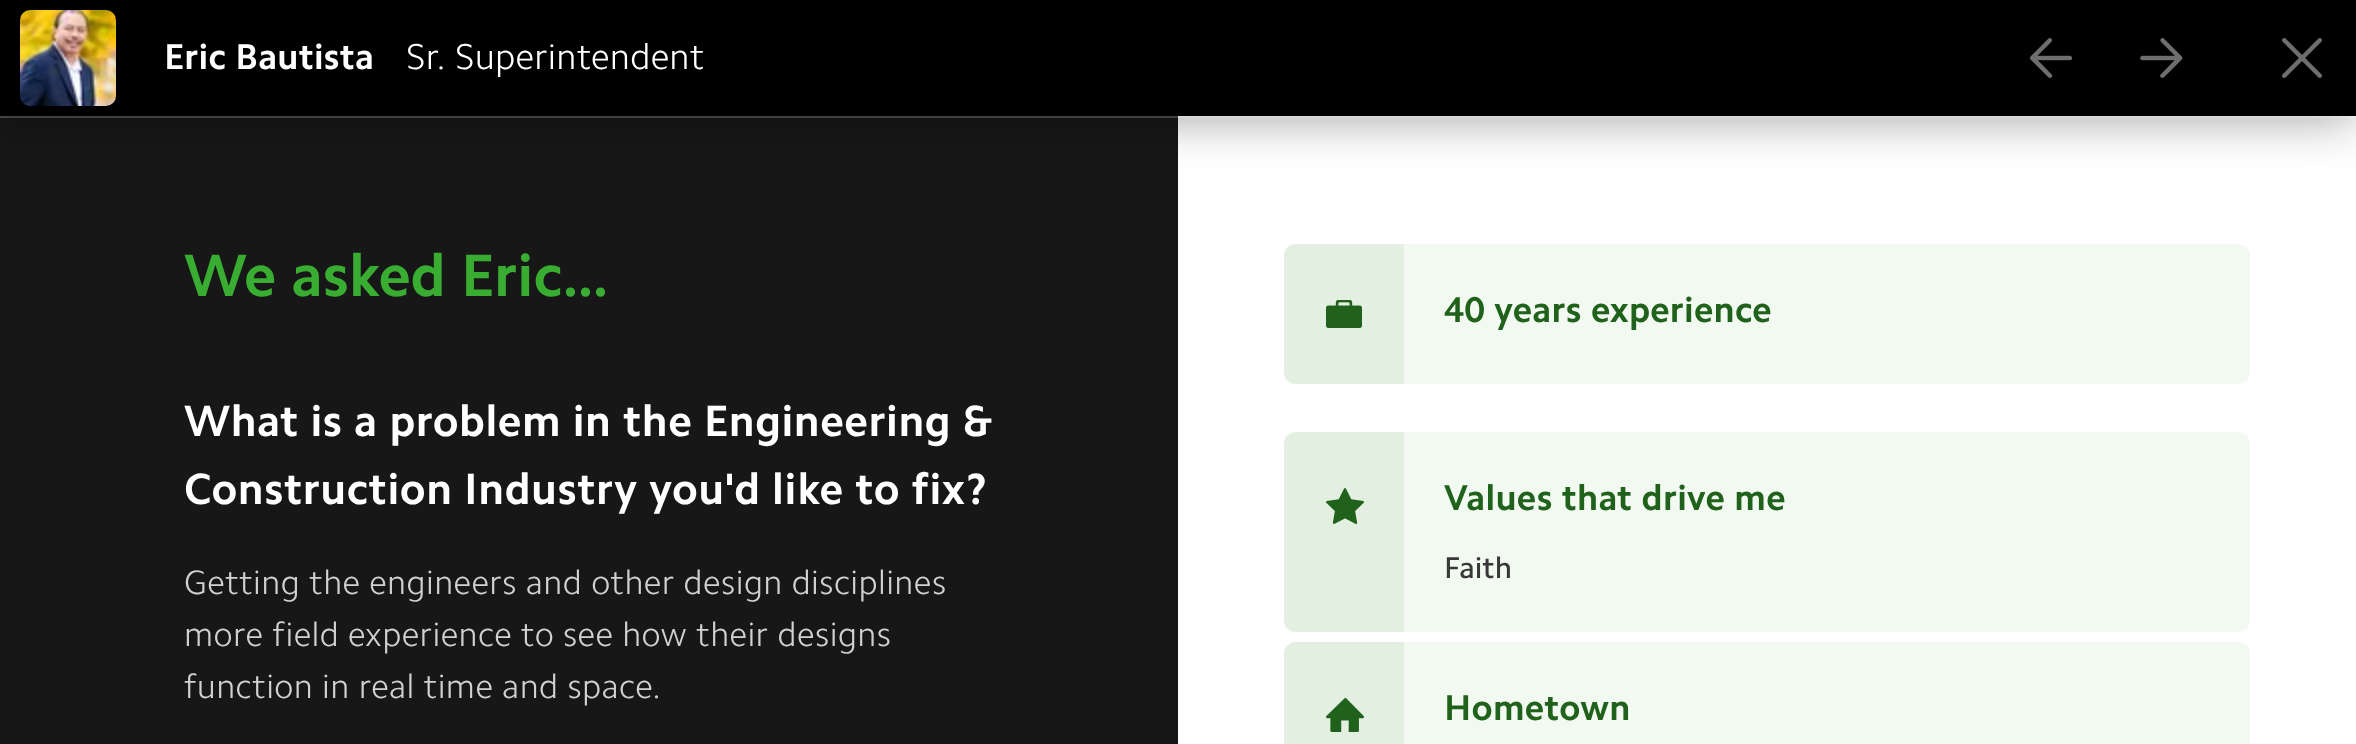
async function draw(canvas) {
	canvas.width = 2356;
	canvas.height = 744;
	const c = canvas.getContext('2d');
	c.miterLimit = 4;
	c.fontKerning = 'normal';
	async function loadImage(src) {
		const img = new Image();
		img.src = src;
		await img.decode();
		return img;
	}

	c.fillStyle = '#fff';
	c.fillRect(0, 0, 2356, 744);
	c.fillStyle = '#171717';
	c.fillRect(0, 116, 1178, 628);
	c.fillStyle = '#00000059';
	c.filter = 'blur(24px)';
	c.beginPath();
	c.rect(0, 4, 2356, 116);
	c.fill();
	c.filter = 'none';
	c.fillStyle = '#ffffff33';
	c.fillRect(0, 116, 2356, 2);
	c.fillStyle = '#000';
	c.fillRect(0, 0, 2356, 116);
	c.drawImage(await loadImage('img1.png'), 20, 10, 96, 96);
	c.letterSpacing = '0.25px';
	c.font = 'bold 36px "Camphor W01"';
	c.fillStyle = '#fff';
	c.fillText('Eric Bautista', 164, 69);
	c.font = '300 36px "Camphor W01"';
	c.fillText('Sr. Superintendent', 406, 69);
	c.drawImage(await loadImage('img2.png'), 2030, 38, 43, 40);
	c.drawImage(await loadImage('img3.png'), 2140, 38, 43, 40);
	c.drawImage(await loadImage('img4.png'), 2282, 38, 40, 40);
	c.letterSpacing = '0px';
	c.font = 'bold 60px "Camphor W01"';
	c.fillStyle = '#39ad31';
	c.fillText('We asked Eric...', 184, 296);
	c.letterSpacing = '0.55px';
	c.font = 'bold 44px "Camphor W01"';
	c.fillStyle = '#fff';
	c.fillText('What is a problem in the Engineering &', 184, 436);
	c.fillText('Construction Industry you\'d like to fix?', 184, 504);
	c.letterSpacing = '0.4px';
	c.font = '300 34px "Camphor W01"';
	c.fillStyle = '#d1d1d1';
	for (const [text, x, y] of [
		['Getting the engineers and other design disciplines', 184, 594],
		['more field experience to see how their designs', 184, 646],
		['function in real time and space.', 184, 698],
	]) {
		c.fillText(text, x, y);
	}
	c.fillStyle = '#f1f9f0';
	c.beginPath();
	c.roundRect(1284, 244, 966, 140, 12);
	c.fill();
	c.fillStyle = '#e2efe1';
	c.beginPath();
	c.roundRect(1284, 244, 120, 140, [12, 0, 0, 12]);
	c.fill();
	c.drawImage(await loadImage('img5.png'), 1326, 300, 36, 28);
	c.letterSpacing = '0.25px';
	c.font = 'bold 36px "Camphor W01"';
	c.fillStyle = '#20611b';
	c.fillText('40 years experience', 1444, 322);
	c.fillStyle = '#f1f9f0';
	c.beginPath();
	c.roundRect(1284, 432, 966, 200, 12);
	c.fill();
	c.fillStyle = '#e2efe1';
	c.beginPath();
	c.roundRect(1284, 432, 120, 200, [12, 0, 0, 12]);
	c.fill();
	c.drawImage(await loadImage('img6.png'), 1326, 488, 38, 36);
	c.fillStyle = '#20611b';
	c.fillText('Values that drive me', 1444, 510);
	c.letterSpacing = '0px';
	c.font = '500 30px "Camphor W01"';
	c.fillStyle = '#383838';
	c.fillText('Faith', 1444, 578);
	c.fillStyle = '#f1f9f0';
	c.beginPath();
	c.roundRect(1284, 642, 966, 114, 12);
	c.fill();
	c.fillStyle = '#e2efe1';
	c.beginPath();
	c.moveTo(1296, 642);
	c.lineTo(1404, 642);
	c.lineTo(1404, 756);
	c.lineTo(1296, 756);
	c.bezierCurveTo(1289.5, 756, 1284, 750.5, 1284, 744);
	c.lineTo(1284, 654);
	c.bezierCurveTo(1284, 647.5, 1289.5, 642, 1296, 642);
	c.closePath();
	c.fill();
	c.drawImage(await loadImage('img7.png'), 1326, 698, 38, 34);
	c.letterSpacing = '0.25px';
	c.font = 'bold 36px "Camphor W01"';
	c.fillStyle = '#20611b';
	c.fillText('Hometown', 1444, 720);
}

draw(document.querySelector('canvas'));
